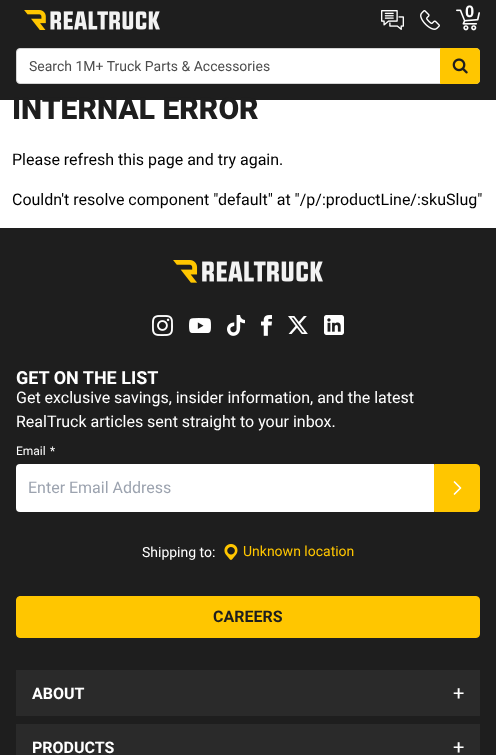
async function draw(canvas) {
	canvas.width = 496;
	canvas.height = 755;
	const c = canvas.getContext('2d');
	c.miterLimit = 4;
	c.fontKerning = 'normal';
	async function loadImage(src) {
		const img = new Image();
		img.src = src;
		await img.decode();
		return img;
	}

	c.fillStyle = '#fff';
	c.fillRect(0, 0, 496, 755);
	c.fillStyle = '#1e1e1e';
	c.fillRect(0, 0, 496, 100);
	c.drawImage(await loadImage('img1.png'), 24, 10, 136, 20);
	c.drawImage(await loadImage('img2.png'), 381, 10, 23, 20);
	c.drawImage(await loadImage('img3.png'), 420, 10, 20, 20);
	c.drawImage(await loadImage('img4.png'), 456, 9, 24, 22);
	c.font = 'bold 16px Roboto';
	c.fillStyle = '#fff';
	c.fillText('0', 465, 17);
	c.beginPath();
	c.roundRect(16.5, 48.5, 463, 35, 3.5);
	c.fill();
	c.strokeStyle = '#d5d5d5';
	c.stroke();
	c.font = '14px Roboto';
	c.fillStyle = '#4d4d4d';
	c.fillText('Search 1M+ Truck Parts & Accessories', 29, 71);
	c.fillStyle = '#ffc600';
	c.beginPath();
	c.roundRect(440.5, 48.5, 39, 35, [0, 3.5, 3.5, 0]);
	c.fill();
	c.strokeStyle = '#ffc600';
	c.stroke();
	c.drawImage(await loadImage('img5.png'), 452, 58, 16, 16);
	c.font = '900 30px Roboto';
	c.fillStyle = '#1e1e1e';
	c.fillText('INTERNAL ERROR', 12, 119);
	c.font = '16px Roboto';
	c.fillStyle = '#000';
	c.fillText('Please refresh this page and try again.', 12, 165);
	c.fillText('Couldn\'t resolve component "default" at "/p/:productLine/:skuSlug"', 12, 205);
	c.fillStyle = '#1e1e1e';
	c.fillRect(0, 228, 496, 527);
	c.drawImage(await loadImage('img6.png'), 173, 260, 150, 23);
	c.drawImage(await loadImage('img7.png'), 152, 315, 21, 21);
	c.drawImage(await loadImage('img8.png'), 189, 318, 22, 15);
	c.drawImage(await loadImage('img9.png'), 227, 315, 18, 21);
	c.drawImage(await loadImage('img10.png'), 261, 315, 11, 21);
	c.drawImage(await loadImage('img11.png'), 288, 316, 20, 18);
	c.drawImage(await loadImage('img12.png'), 324, 315, 20, 20);
	c.font = 'bold 18px Roboto';
	c.fillStyle = '#fff';
	c.fillText('GET ON THE LIST', 16, 384);
	c.font = '16px Roboto';
	c.fillText('Get exclusive savings, insider information, and the latest', 16, 403);
	c.fillText('RealTruck articles sent straight to your inbox.', 16, 427);
	c.font = '12px Roboto';
	c.fillText('Email', 16, 455);
	c.fillText('*', 50, 455);
	c.beginPath();
	c.roundRect(16, 464, 418, 48, [4, 0, 0, 4]);
	c.fill();
	c.font = '16px Roboto';
	c.fillStyle = '#9ca3af';
	c.fillText('Enter Email Address', 28, 493);
	c.fillStyle = '#ffc600';
	c.beginPath();
	c.roundRect(434.5, 464.5, 45, 47, [0, 3.5, 3.5, 0]);
	c.fill();
	c.stroke();
	c.beginPath();
	c.moveTo(454.5, 482);
	c.lineTo(460.5, 488);
	c.lineTo(454.5, 494);
	c.strokeStyle = '#fff';
	c.lineWidth = 1.7;
	c.lineCap = 'round';
	c.lineJoin = 'round';
	c.stroke();
	c.font = '14px Roboto';
	c.fillStyle = '#fff';
	c.fillText('Shipping to:', 142, 557);
	c.drawImage(await loadImage('img13.png'), 224, 544, 14, 16);
	c.fillStyle = '#ffc600';
	c.fillText('Unknown location', 243, 556);
	c.beginPath();
	c.roundRect(16.5, 596.5, 463, 41, 3.5);
	c.fill();
	c.strokeStyle = '#ffc600';
	c.lineWidth = 1;
	c.lineJoin = 'miter';
	c.stroke();
	c.font = 'bold 16px Roboto';
	c.fillStyle = '#1e1e1e';
	c.fillText('CAREERS', 213, 622);
	c.fillStyle = '#2a2a2a';
	c.fillRect(16, 670, 464, 46);
	c.fillStyle = '#fff';
	c.fillText('ABOUT', 32, 699);
	c.font = '20px Roboto';
	c.fillText('+', 453, 700);
	c.fillStyle = '#2a2a2a';
	c.fillRect(16, 724, 464, 31);
	c.font = 'bold 16px Roboto';
	c.fillStyle = '#fff';
	c.fillText('PRODUCTS', 32, 753);
	c.font = '20px Roboto';
	c.fillText('+', 453, 754);
}

draw(document.querySelector('canvas'));
